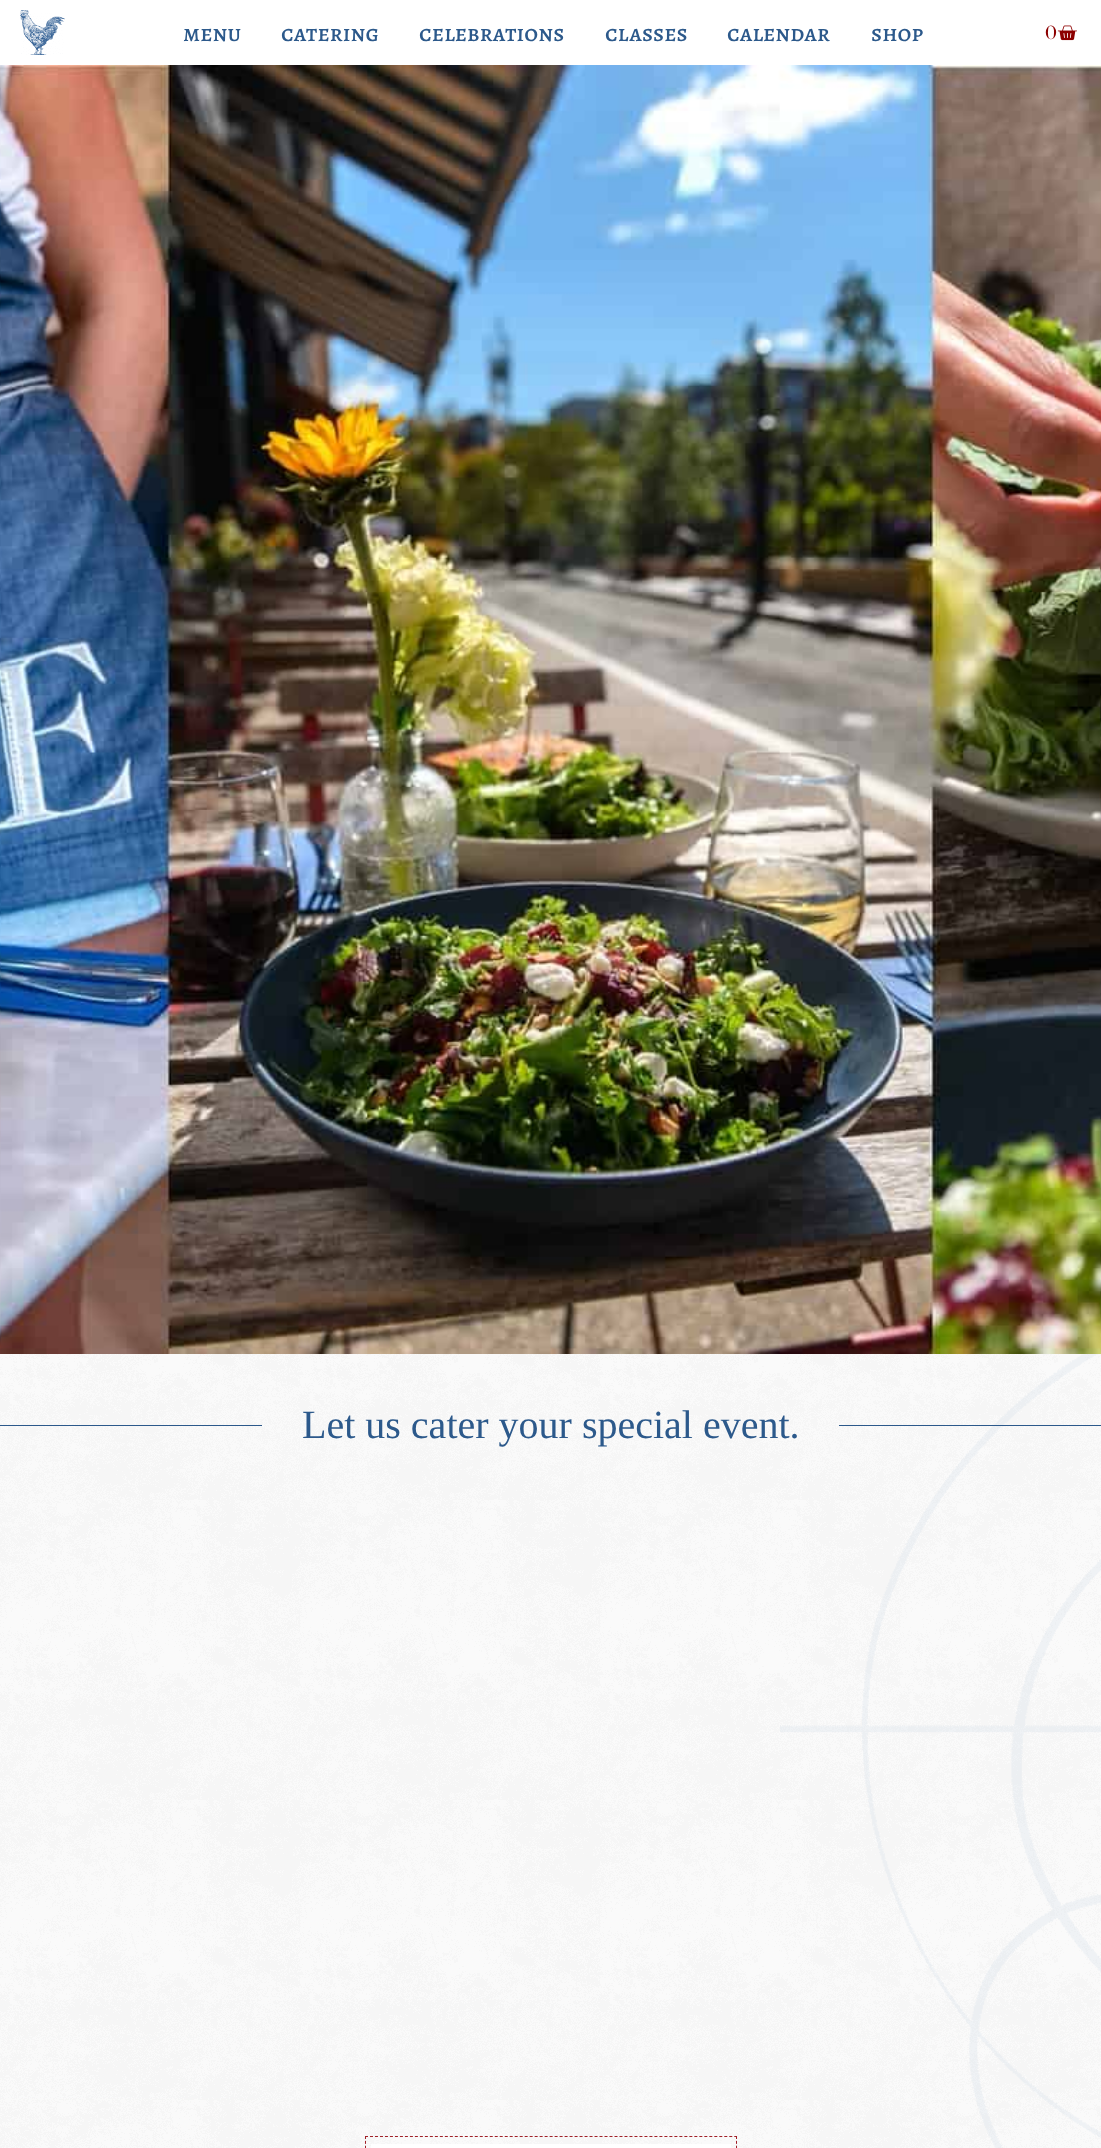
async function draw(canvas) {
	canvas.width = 1101;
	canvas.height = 2148;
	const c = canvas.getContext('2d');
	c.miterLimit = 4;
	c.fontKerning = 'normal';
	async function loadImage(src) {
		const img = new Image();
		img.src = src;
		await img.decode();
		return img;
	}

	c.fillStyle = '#fff';
	c.fillRect(0, 0, 1101, 2148);
	c.drawImage(await loadImage('img1.png'), 0, 1354, 1101, 794);
	c.drawImage(await loadImage('img2.png'), 20, 10, 45, 45);
	c.letterSpacing = '0.1px';
	c.font = '500 24px Alegreya SC';
	c.fillStyle = '#2c598b';
	for (const [text, x, y] of [
		['menu', 183, 41],
		['catering', 281, 41],
		['celebrations', 419, 41],
		['classes', 605, 41],
		['calendar', 727, 41],
		['shop', 871, 41],
	]) {
		c.fillText(text, x, y);
	}
	c.font = '20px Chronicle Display';
	c.fillStyle = '#8d0000';
	c.fillText('0', 1045, 39);
	c.drawImage(await loadImage('img3.png'), 1057, 25, 20, 16);
	c.drawImage(await loadImage('img4.png'), 0, 65, 1101, 1289);
	c.fillStyle = '#2c598b';
	c.fillRect(0, 1425, 262, 1);
	c.drawImage(await loadImage('img5.png'), 780, 1354, 321, 794);
	c.letterSpacing = '0px';
	c.font = '40px Liberation Serif';
	c.fillText('Let us cater your special event.', 302, 1438);
	c.fillRect(839, 1425, 262, 1);
	c.beginPath();
	c.moveTo(365, 2136.5);
	c.lineTo(737, 2136.5);
	c.strokeStyle = '#a12028';
	c.setLineDash([3, 1.99]);
	c.stroke();
	c.beginPath();
	c.moveTo(736.5, 2136);
	c.lineTo(736.5, 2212);
	c.setLineDash([3, 1.87]);
	c.stroke();
	c.beginPath();
	c.moveTo(365.5, 2136);
	c.lineTo(365.5, 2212);
	c.stroke();
	c.fillStyle = '#fff';
	c.fillRect(371, 2144, 360, 4);
}

draw(document.querySelector('canvas'));
